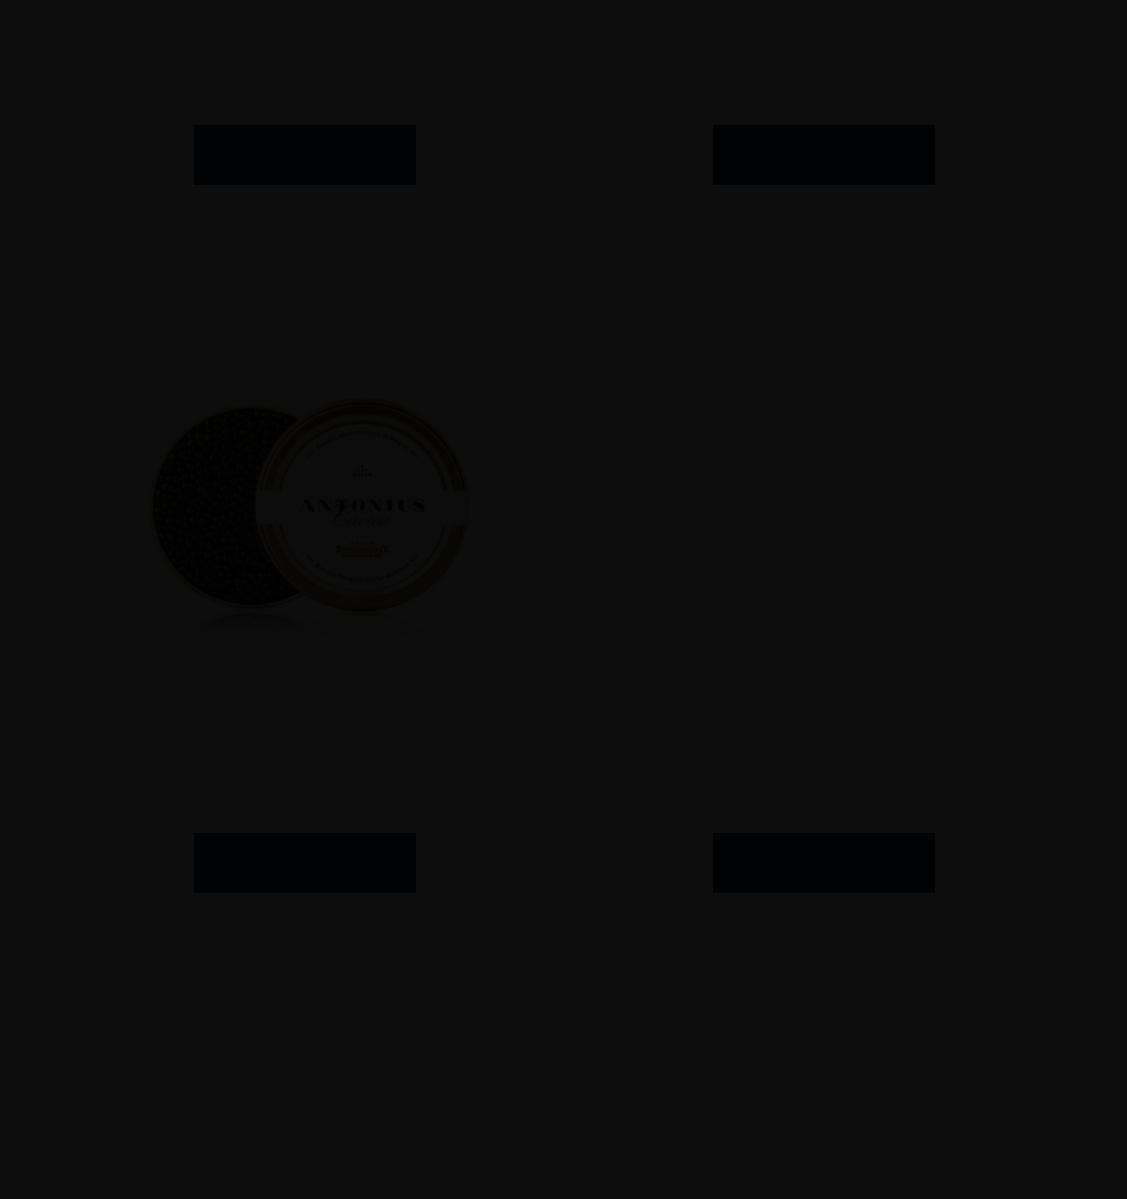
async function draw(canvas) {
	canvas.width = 1127;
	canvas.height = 1199;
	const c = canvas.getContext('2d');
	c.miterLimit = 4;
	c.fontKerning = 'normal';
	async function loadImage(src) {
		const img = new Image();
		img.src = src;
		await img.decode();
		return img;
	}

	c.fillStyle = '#0d0d0d';
	c.fillRect(0, 0, 1127, 1199);
	c.fillStyle = '#010203';
	c.fillRect(194, 125, 222, 60);
	c.fillRect(713, 125, 222, 60);
	c.drawImage(await loadImage('img1.png'), 66, 343, 477, 358);
	c.fillRect(194, 833, 222, 60);
	c.fillRect(713, 833, 222, 60);
}

draw(document.querySelector('canvas'));
